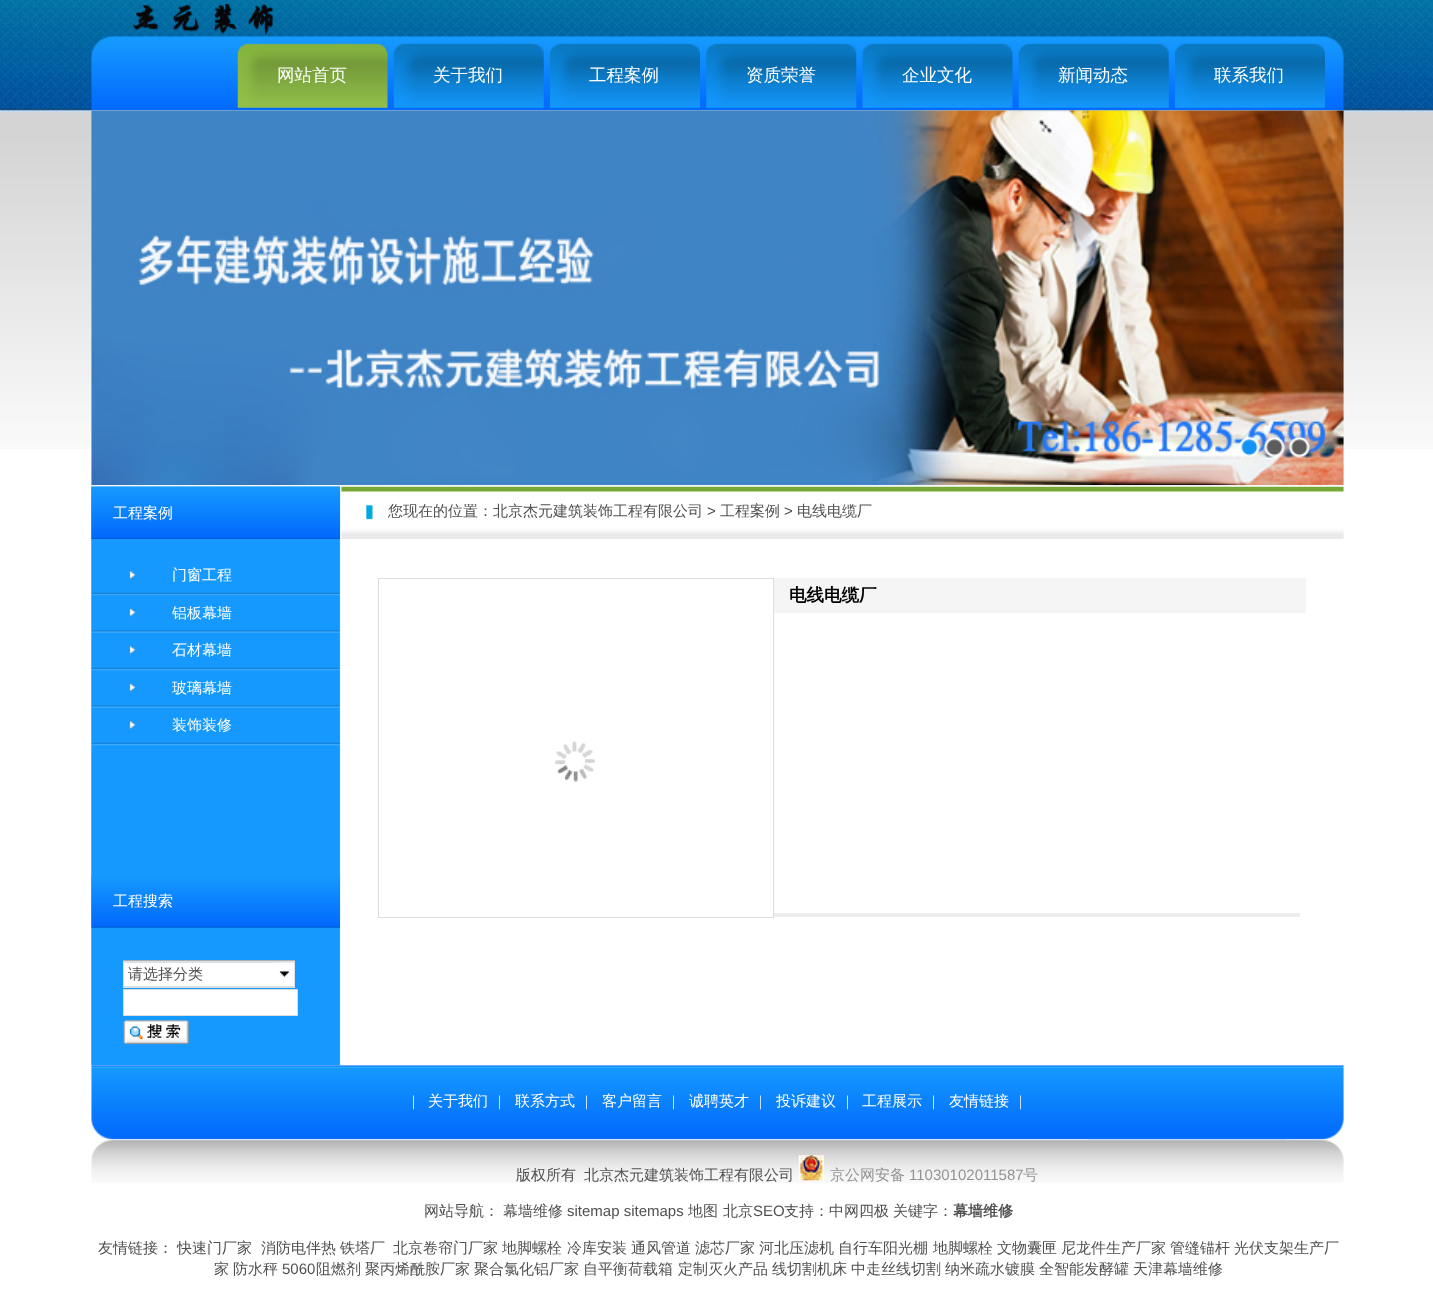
async function draw(canvas) {
	canvas.width = 1433;
	canvas.height = 1292;
	const c = canvas.getContext('2d');
	c.miterLimit = 4;
	c.fontKerning = 'normal';
	async function loadImage(src) {
		const img = new Image();
		img.src = src;
		await img.decode();
		return img;
	}

	c.fillStyle = '#fff';
	c.fillRect(0, 0, 1433, 1292);
	c.drawImage(await loadImage('img1.png'), 0, 0, 1433, 449);
	c.drawImage(await loadImage('img11.png'), 91, 110, 1253, 376);
	c.drawImage(await loadImage('img2.png'), 91, 0, 1253, 111);
	c.drawImage(await loadImage('img3.png'), 133, 3, 141, 32);
	c.drawImage(await loadImage('img4.png'), 237, 43, 151, 65);
	c.font = '500 17.5px WenQuanYi Zen Hei';
	c.fillText('网站首页', 277, 81);
	c.drawImage(await loadImage('img5.png'), 393, 43, 151, 65);
	c.fillText('关于我们', 433, 81);
	c.drawImage(await loadImage('img6.png'), 550, 43, 150, 65);
	c.fillText('工程案例', 589, 81);
	c.drawImage(await loadImage('img7.png'), 706, 43, 151, 65);
	c.fillText('资质荣誉', 746, 81);
	c.drawImage(await loadImage('img8.png'), 862, 43, 151, 65);
	c.fillText('企业文化', 902, 81);
	c.drawImage(await loadImage('img9.png'), 1018, 43, 151, 65);
	c.fillText('新闻动态', 1058, 81);
	c.drawImage(await loadImage('img10.png'), 1175, 43, 150, 65);
	c.fillText('联系我们', 1214, 81);
	c.drawImage(await loadImage('img12.png'), 1239, 436, 22, 22);
	c.drawImage(await loadImage('img13.png'), 1263, 436, 23, 22);
	c.drawImage(await loadImage('img14.png'), 1288, 436, 23, 22);
	c.drawImage(await loadImage('img15.png'), 91, 486, 250, 580);
	c.drawImage(await loadImage('img16.png'), 91, 486, 249, 53);
	c.font = '500 15px WenQuanYi Zen Hei';
	c.fillText('工程案例', 113, 518);
	c.drawImage(await loadImage('img17.png'), 91, 570, 249, 26);
	c.fillText('门窗工程', 172, 580);
	c.drawImage(await loadImage('img18.png'), 91, 607, 249, 26);
	c.fillText('铝板幕墙', 172, 618);
	c.drawImage(await loadImage('img17.png'), 91, 645, 249, 26);
	c.fillText('石材幕墙', 172, 655);
	c.drawImage(await loadImage('img18.png'), 91, 682, 249, 26);
	c.fillText('玻璃幕墙', 172, 693);
	c.drawImage(await loadImage('img17.png'), 91, 720, 249, 26);
	c.fillText('装饰装修', 172, 730);
	c.drawImage(await loadImage('img19.png'), 341, 486, 1003, 53);
	c.fillStyle = '#505050';
	c.fillText('您现在的位置：北京杰元建筑装饰工程有限公司', 388, 516);
	c.font = '15px Liberation Sans';
	c.fillText('>', 707, 516);
	c.font = '500 15px WenQuanYi Zen Hei';
	c.fillText('工程案例', 720, 516);
	c.font = '15px Liberation Sans';
	c.fillText('>', 784, 516);
	c.font = '500 15px WenQuanYi Zen Hei';
	c.fillText('电线电缆厂', 797, 516);
	c.strokeStyle = '#ddd';
	c.strokeRect(378.5, 578.5, 395, 339);
	c.drawImage(await loadImage('img20.png'), 555, 741, 40, 41);
	c.fillStyle = '#f5f5f5';
	c.fillRect(774, 578, 532, 35);
	c.font = 'bold 17.5px WenQuanYi Zen Hei';
	c.fillStyle = '#000';
	c.fillText('电线电缆厂', 789, 601);
	c.fillStyle = '#eee';
	c.fillRect(774, 913, 526, 4);
	c.drawImage(await loadImage('img21.png'), 91, 875, 249, 53);
	c.font = '500 15px WenQuanYi Zen Hei';
	c.fillStyle = '#fff';
	c.fillText('工程搜索', 113, 906);
	for (const [x, y, w, h, color] of [
		[123, 961, 172, 27, '#dbdfe6'],
		[123, 960, 172, 1, '#abadb3'],
		[124, 963, 170, 23, '#fff'],
	]) {
		c.fillStyle = color;
		c.fillRect(x, y, w, h);
	}
	c.fillStyle = '#505050';
	c.fillText('请选择分类', 128, 979);
	c.drawImage(await loadImage('img22.png'), 274, 962, 20, 15);
	c.fillStyle = '#fff';
	c.beginPath();
	c.rect(123.5, 989.5, 174, 26);
	c.fill();
	c.stroke();
	c.drawImage(await loadImage('img23.png'), 123, 1020, 66, 25);
	c.drawImage(await loadImage('img24.png'), 91, 1065, 1253, 118);
	c.font = '15px Liberation Serif';
	c.fillText('|', 412, 1106);
	c.font = '500 15px WenQuanYi Zen Hei';
	c.fillText('关于我们', 428, 1106);
	c.font = '15px Liberation Serif';
	c.fillText('|', 498, 1106);
	c.font = '500 15px WenQuanYi Zen Hei';
	c.fillText('联系方式', 515, 1106);
	c.font = '15px Liberation Serif';
	c.fillText('|', 585, 1106);
	c.font = '500 15px WenQuanYi Zen Hei';
	c.fillText('客户留言', 602, 1106);
	c.font = '15px Liberation Serif';
	c.fillText('|', 672, 1106);
	c.font = '500 15px WenQuanYi Zen Hei';
	c.fillText('诚聘英才', 689, 1106);
	c.font = '15px Liberation Serif';
	c.fillText('|', 759, 1106);
	c.font = '500 15px WenQuanYi Zen Hei';
	c.fillText('投诉建议', 776, 1106);
	c.font = '15px Liberation Serif';
	c.fillText('|', 846, 1106);
	c.font = '500 15px WenQuanYi Zen Hei';
	c.fillText('工程展示', 862, 1106);
	c.font = '15px Liberation Serif';
	c.fillText('|', 932, 1106);
	c.font = '500 15px WenQuanYi Zen Hei';
	c.fillText('友情链接', 949, 1106);
	c.font = '15px Liberation Serif';
	c.fillText('|', 1019, 1106);
	c.font = '500 15px WenQuanYi Zen Hei';
	c.fillStyle = '#505050';
	c.fillText('版权所有', 516, 1180);
	c.fillText('北京杰元建筑装饰工程有限公司', 584, 1180);
	c.drawImage(await loadImage('img25.png'), 798, 1155, 26, 26);
	c.fillStyle = '#939393';
	c.fillText('京公网安备', 830, 1180);
	c.font = '15px Liberation Sans';
	c.fillText('11030102011587', 909, 1180);
	c.font = '500 15px WenQuanYi Zen Hei';
	c.fillText('号', 1023, 1180);
	c.fillStyle = '#505050';
	c.fillText('网站导航：', 424, 1216);
	c.fillText('幕墙维修', 503, 1216);
	c.font = '15px Liberation Sans';
	c.fillText('sitemap sitemaps', 567, 1216);
	c.font = '500 15px WenQuanYi Zen Hei';
	c.fillText('地图', 688, 1216);
	c.fillText('北京', 723, 1216);
	c.font = '15px Liberation Sans';
	c.fillText('SEO', 753, 1216);
	c.font = '500 15px WenQuanYi Zen Hei';
	c.fillText('支持：中网四极', 784, 1216);
	c.fillText('关键字：', 893, 1216);
	c.font = 'bold 15px WenQuanYi Zen Hei';
	c.fillText('幕墙维修', 953, 1216);
	c.font = '500 15px WenQuanYi Zen Hei';
	for (const [text, x, y] of [
		['友情链接：', 98, 1253],
		['快速门厂家', 177, 1253],
		['消防电伴热', 261, 1253],
		['铁塔厂', 340, 1253],
		['北京卷帘门厂家', 393, 1253],
		['地脚螺栓', 502, 1253],
		['冷库安装', 567, 1253],
		['通风管道', 631, 1253],
		['滤芯厂家', 695, 1253],
		['河北压滤机', 759, 1253],
		['自行车阳光棚', 838, 1253],
		['地脚螺栓', 933, 1253],
		['文物囊匣', 997, 1253],
		['尼龙件生产厂家', 1061, 1253],
		['管缝锚杆', 1170, 1253],
		['光伏支架生产厂', 1234, 1253],
		['家', 214, 1274],
		['防水秤', 233, 1274],
	]) {
		c.fillText(text, x, y);
	}
	c.font = '15px Liberation Sans';
	c.fillText('5060', 282, 1274);
	c.font = '500 15px WenQuanYi Zen Hei';
	for (const [text, x, y] of [
		['阻燃剂', 316, 1274],
		['聚丙烯酰胺厂家', 365, 1274],
		['聚合氯化铝厂家', 474, 1274],
		['自平衡荷载箱', 583, 1274],
		['定制灭火产品', 678, 1274],
		['线切割机床', 772, 1274],
		['中走丝线切割', 851, 1274],
		['纳米疏水镀膜', 945, 1274],
		['全智能发酵罐', 1039, 1274],
		['天津幕墙维修', 1133, 1274],
	]) {
		c.fillText(text, x, y);
	}
}

draw(document.querySelector('canvas'));
